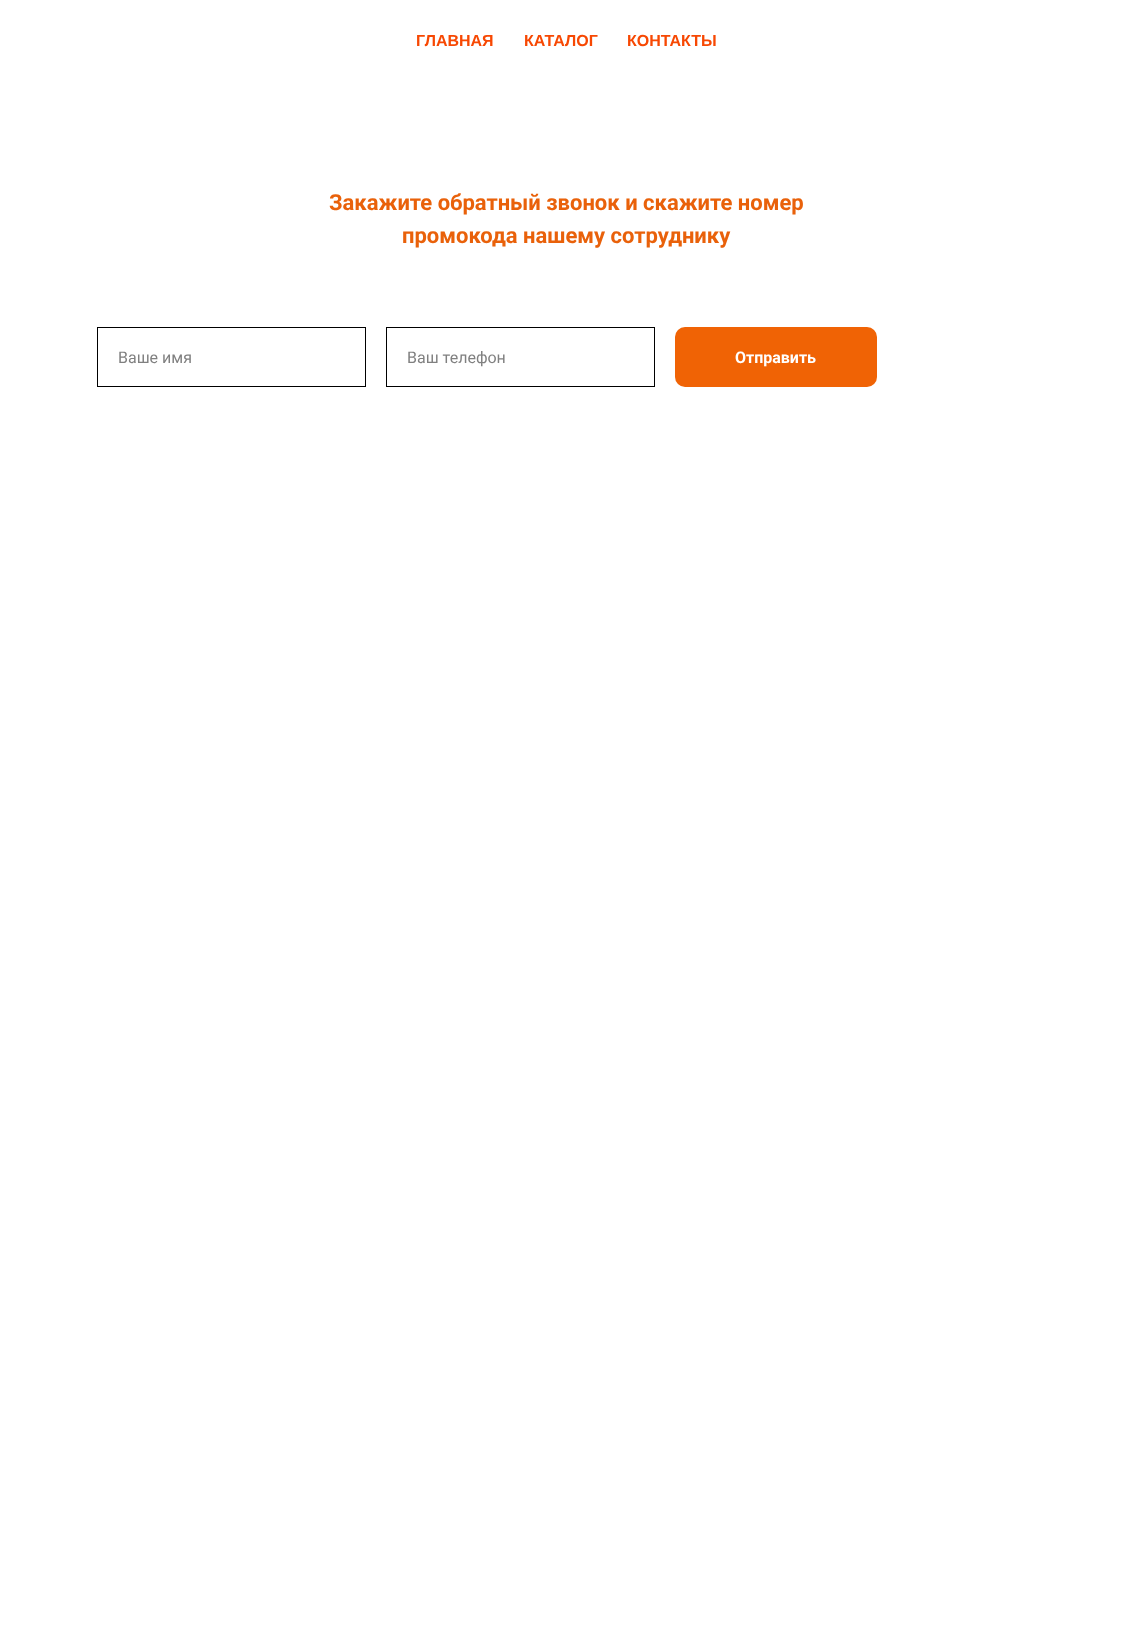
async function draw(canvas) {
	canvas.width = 1133;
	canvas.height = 1640;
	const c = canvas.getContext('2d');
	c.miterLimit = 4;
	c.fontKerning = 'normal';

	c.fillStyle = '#fff';
	c.fillRect(0, 0, 1133, 1640);
	c.font = 'bold 16px Liberation Sans';
	c.fillStyle = '#f74803';
	for (const [text, x, y] of [
		['ГЛАВНАЯ', 416, 46],
		['КАТАЛОГ', 524, 46],
		['КОНТАКТЫ', 627, 46],
	]) {
		c.fillText(text, x, y);
	}
	c.font = 'bold 22px Roboto';
	c.fillStyle = '#e9610a';
	c.fillText('Закажите обратный звонок и скажите номер', 329, 210);
	c.fillText('промокода нашему сотруднику', 402, 243);
	c.strokeStyle = '#000';
	c.strokeRect(97.5, 327.5, 268, 59);
	c.font = '16px Roboto';
	c.fillStyle = '#808080';
	c.fillText('Ваше имя', 118, 363);
	c.strokeRect(386.5, 327.5, 268, 59);
	c.fillText('Ваш телефон', 407, 363);
	c.fillStyle = '#f06305';
	c.beginPath();
	c.roundRect(675, 327, 202, 60, 10);
	c.fill();
	c.font = 'bold 16px Roboto';
	c.fillStyle = '#fff';
	c.fillText('Отправить', 735, 363);
}

draw(document.querySelector('canvas'));
